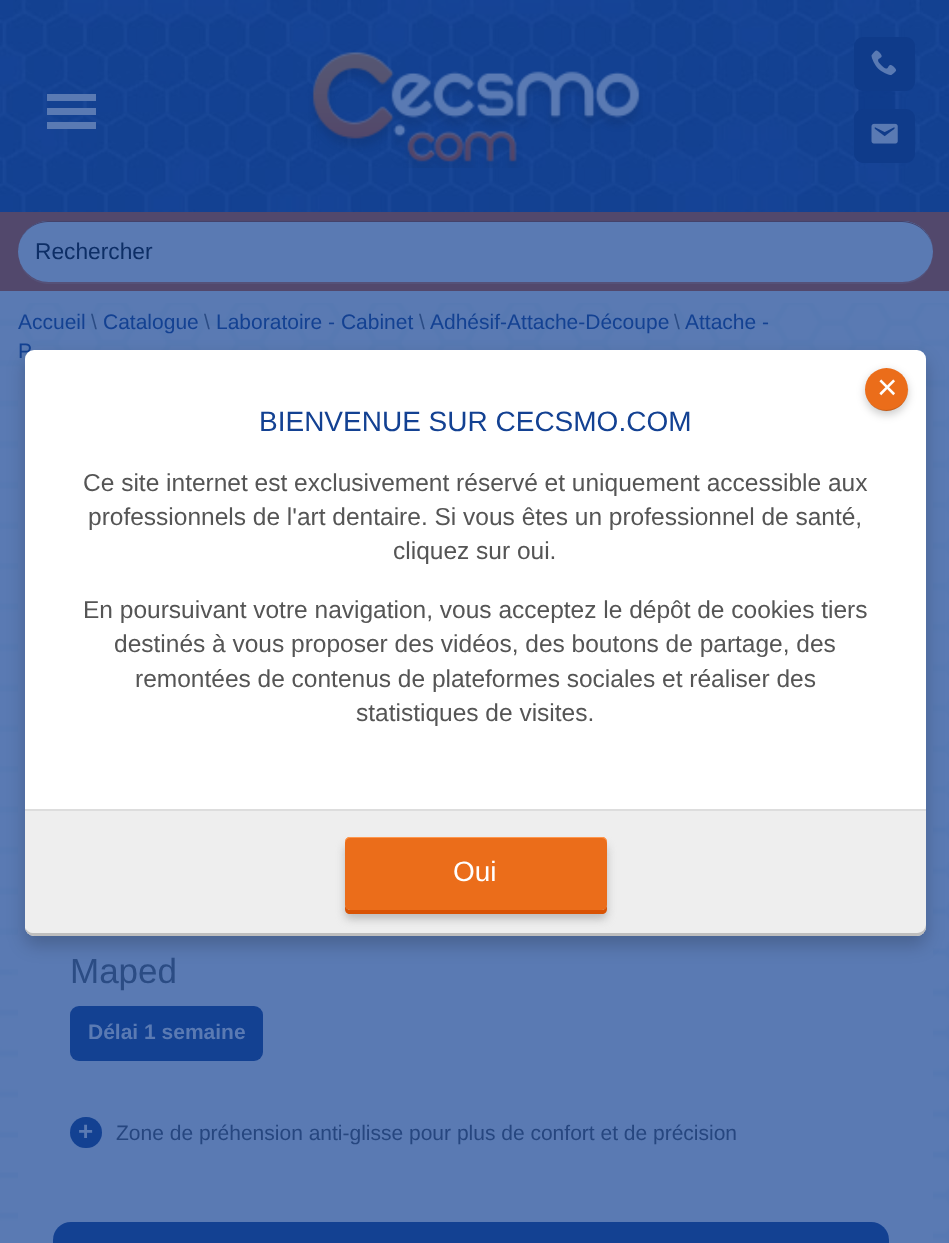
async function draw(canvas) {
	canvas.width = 949;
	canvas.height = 1243;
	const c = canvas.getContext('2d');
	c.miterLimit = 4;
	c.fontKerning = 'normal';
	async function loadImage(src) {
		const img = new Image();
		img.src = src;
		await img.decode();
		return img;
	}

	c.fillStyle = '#5a7ab3';
	c.fillRect(0, 0, 949, 1243);
	c.drawImage(await loadImage('img1.png'), 0, 303, 949, 940);
	c.drawImage(await loadImage('img2.png'), 0, 0, 949, 212);
	c.beginPath();
	c.moveTo(47, 94);
	c.lineTo(96, 94);
	c.lineTo(96, 101);
	c.lineTo(47, 101);
	c.closePath();
	c.moveTo(47, 108);
	c.lineTo(96, 108);
	c.lineTo(96, 115);
	c.lineTo(47, 115);
	c.closePath();
	c.moveTo(47, 122);
	c.lineTo(96, 122);
	c.lineTo(96, 129);
	c.lineTo(47, 129);
	c.closePath();
	c.fill();
	c.drawImage(await loadImage('img3.png'), 308, 52, 335, 116);
	c.fillStyle = '#0f3b8a';
	c.beginPath();
	c.roundRect(854, 37, 61, 54, 9);
	c.fill();
	c.drawImage(await loadImage('img4.png'), 871, 50, 26, 26);
	c.beginPath();
	c.roundRect(854, 109, 61, 54, 9);
	c.fill();
	c.drawImage(await loadImage('img5.png'), 871, 123, 27, 21);
	c.fillStyle = '#52486c';
	c.fillRect(0, 212, 949, 79);
	c.fillStyle = '#555178';
	c.beginPath();
	c.moveTo(19, 260);
	c.bezierCurveTo(22, 274, 34, 284, 49, 284);
	c.lineTo(902, 284);
	c.bezierCurveTo(919, 284, 933, 270, 933, 253);
	c.lineTo(933, 248);
	c.lineTo(933, 251);
	c.bezierCurveTo(933, 268, 919, 282, 902, 282);
	c.lineTo(48, 282);
	c.bezierCurveTo(34, 282, 23, 273, 19, 260);
	c.closePath();
	c.fill();
	c.fillStyle = '#5a7ab3';
	c.beginPath();
	c.roundRect(18, 221, 915, 61, 30.5);
	c.fill();
	c.fillStyle = '#44426a';
	c.beginPath();
	c.moveTo(48, 222);
	c.lineTo(902, 222);
	c.bezierCurveTo(919, 222, 933, 236, 933, 252);
	c.bezierCurveTo(933, 235, 919, 221, 902, 221);
	c.lineTo(48, 221);
	c.bezierCurveTo(32, 221, 18, 235, 18, 252);
	c.bezierCurveTo(18, 236, 31, 222, 48, 222);
	c.closePath();
	c.fill();
	c.font = '22.75px Liberation Sans';
	c.fillStyle = '#0d2e66';
	c.fillText('Rechercher', 35, 259);
	c.font = '21px Liberation Sans';
	c.fillStyle = '#134192';
	c.fillText('Accueil', 18, 329);
	c.fillStyle = '#2b4c84';
	c.fillText('\\', 91, 329);
	c.fillStyle = '#134192';
	c.fillText('Catalogue', 103, 329);
	c.fillStyle = '#2b4c84';
	c.fillText('\\', 204, 329);
	c.fillStyle = '#134192';
	c.fillText('Laboratoire - Cabinet', 216, 329);
	c.fillStyle = '#2b4c84';
	c.fillText('\\', 419, 329);
	c.fillStyle = '#134192';
	c.fillText('Adhésif-Attache-Découpe', 430, 329);
	c.fillStyle = '#2b4c84';
	c.fillText('\\', 674, 329);
	c.fillStyle = '#134192';
	c.fillText('Attache -', 685, 329);
	c.fillText('P', 18, 358);
	c.fillStyle = '#5a7ab3';
	c.beginPath();
	c.roundRect(18, 385, 915, 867, 9);
	c.fill();
	c.fillStyle = '#00000033';
	c.filter = 'blur(9px)';
	c.beginPath();
	c.roundRect(25, 359, 901, 586, 9);
	c.fill();
	c.filter = 'none';
	c.fillStyle = '#fff';
	c.beginPath();
	c.roundRect(25, 350, 901, 586, 9);
	c.fill();
	c.fillStyle = '#00000033';
	c.filter = 'blur(4.5px)';
	c.beginPath();
	c.roundRect(865, 371, 43, 44, 21.5);
	c.fill();
	c.filter = 'none';
	c.fillStyle = '#eb6d1a';
	c.beginPath();
	c.arc(886.5, 389.5, 21.5, 0, 2 * Math.PI);
	c.fill();
	c.fillStyle = '#00000026';
	c.beginPath();
	c.moveTo(865, 389);
	c.bezierCurveTo(866, 419, 911, 416, 908, 385);
	c.bezierCurveTo(912, 408, 882, 421, 869, 402);
	c.bezierCurveTo(866, 398, 865, 393, 865, 389);
	c.closePath();
	c.fill();
	c.font = '35px Liberation Sans';
	c.fillStyle = '#fff';
	c.fillText('×', 877, 399);
	c.font = '28px Liberation Sans';
	c.fillStyle = '#134192';
	c.fillText('BIENVENUE SUR CECSMO.COM', 259, 431);
	c.font = '24.5px Liberation Sans';
	c.fillStyle = '#555';
	for (const [text, x, y] of [
		['Ce site internet est exclusivement réservé et uniquement accessible aux', 83, 491],
		['professionnels de l\'art dentaire. Si vous êtes un professionnel de santé,', 88, 525],
		['cliquez sur oui.', 393, 559],
		['En poursuivant votre navigation, vous acceptez le dépôt de cookies tiers', 83, 618],
		['destinés à vous proposer des vidéos, des boutons de partage, des', 114, 652],
		['remontées de contenus de plateformes sociales et réaliser des', 135, 687],
		['statistiques de visites.', 356, 721],
	]) {
		c.fillText(text, x, y);
	}
	c.fillStyle = '#eee';
	c.beginPath();
	c.roundRect(25, 809, 901, 127, [0, 0, 9, 9]);
	c.fill();
	c.fillStyle = '#00000033';
	c.beginPath();
	c.moveTo(926, 924);
	c.bezierCurveTo(926, 929, 922, 933, 917, 933);
	c.lineTo(33, 933);
	c.bezierCurveTo(30, 933, 27, 931, 25, 928);
	c.bezierCurveTo(26, 933, 30, 936, 34, 936);
	c.lineTo(917, 936);
	c.bezierCurveTo(922, 936, 926, 932, 926, 927);
	c.closePath();
	c.fill();
	c.fillStyle = '#ddd';
	c.fillRect(25, 809, 901, 2);
	c.fillStyle = '#bbb';
	c.filter = 'blur(4.5px)';
	c.beginPath();
	c.roundRect(345, 845, 262, 74, 5);
	c.fill();
	c.filter = 'none';
	c.fillStyle = '#d95304';
	c.beginPath();
	c.moveTo(345, 906);
	c.lineTo(345, 909);
	c.bezierCurveTo(345, 912, 347, 914, 350, 914);
	c.lineTo(602, 914);
	c.bezierCurveTo(605, 914, 607, 912, 607, 909);
	c.lineTo(607, 906);
	c.bezierCurveTo(606, 908, 604, 910, 602, 910);
	c.lineTo(350, 910);
	c.bezierCurveTo(348, 910, 346, 908, 345, 906);
	c.closePath();
	c.fill();
	c.fillStyle = '#eb6d1a';
	c.beginPath();
	c.roundRect(345, 837, 262, 73, 5);
	c.fill();
	c.fillStyle = '#ff974d';
	c.beginPath();
	c.moveTo(350, 838);
	c.lineTo(602, 838);
	c.bezierCurveTo(605, 838, 607, 841, 607, 844);
	c.lineTo(607, 842);
	c.bezierCurveTo(607, 839, 605, 837, 602, 837);
	c.lineTo(350, 837);
	c.bezierCurveTo(347, 837, 345, 839, 345, 842);
	c.lineTo(345, 844);
	c.bezierCurveTo(345, 841, 347, 838, 350, 838);
	c.closePath();
	c.fill();
	c.font = '28px Liberation Sans';
	c.fillStyle = '#fff';
	c.fillText('Oui', 453, 881);
	c.font = '35px Liberation Sans';
	c.fillStyle = '#2b4c84';
	c.fillText('Maped', 70, 983);
	c.fillStyle = '#134192';
	c.beginPath();
	c.roundRect(70, 1006, 193, 55, 9);
	c.fill();
	c.font = 'bold 21px Liberation Sans';
	c.fillStyle = '#5a7ab3';
	c.fillText('Délai 1 semaine', 88, 1039);
	c.fillStyle = '#134192';
	c.beginPath();
	c.roundRect(70, 1117, 32, 31, 15.5);
	c.fill();
	c.font = 'bold 26px Liberation Sans';
	c.fillStyle = '#5a7ab3';
	c.fillText('+', 78, 1140);
	c.font = '21px Liberation Sans';
	c.fillStyle = '#26467f';
	c.fillText('Zone de préhension anti-glisse pour plus de confort et de précision', 116, 1140);
	c.fillStyle = '#134192';
	c.beginPath();
	c.roundRect(53, 1222, 836, 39, 18);
	c.fill();
}

draw(document.querySelector('canvas'));
